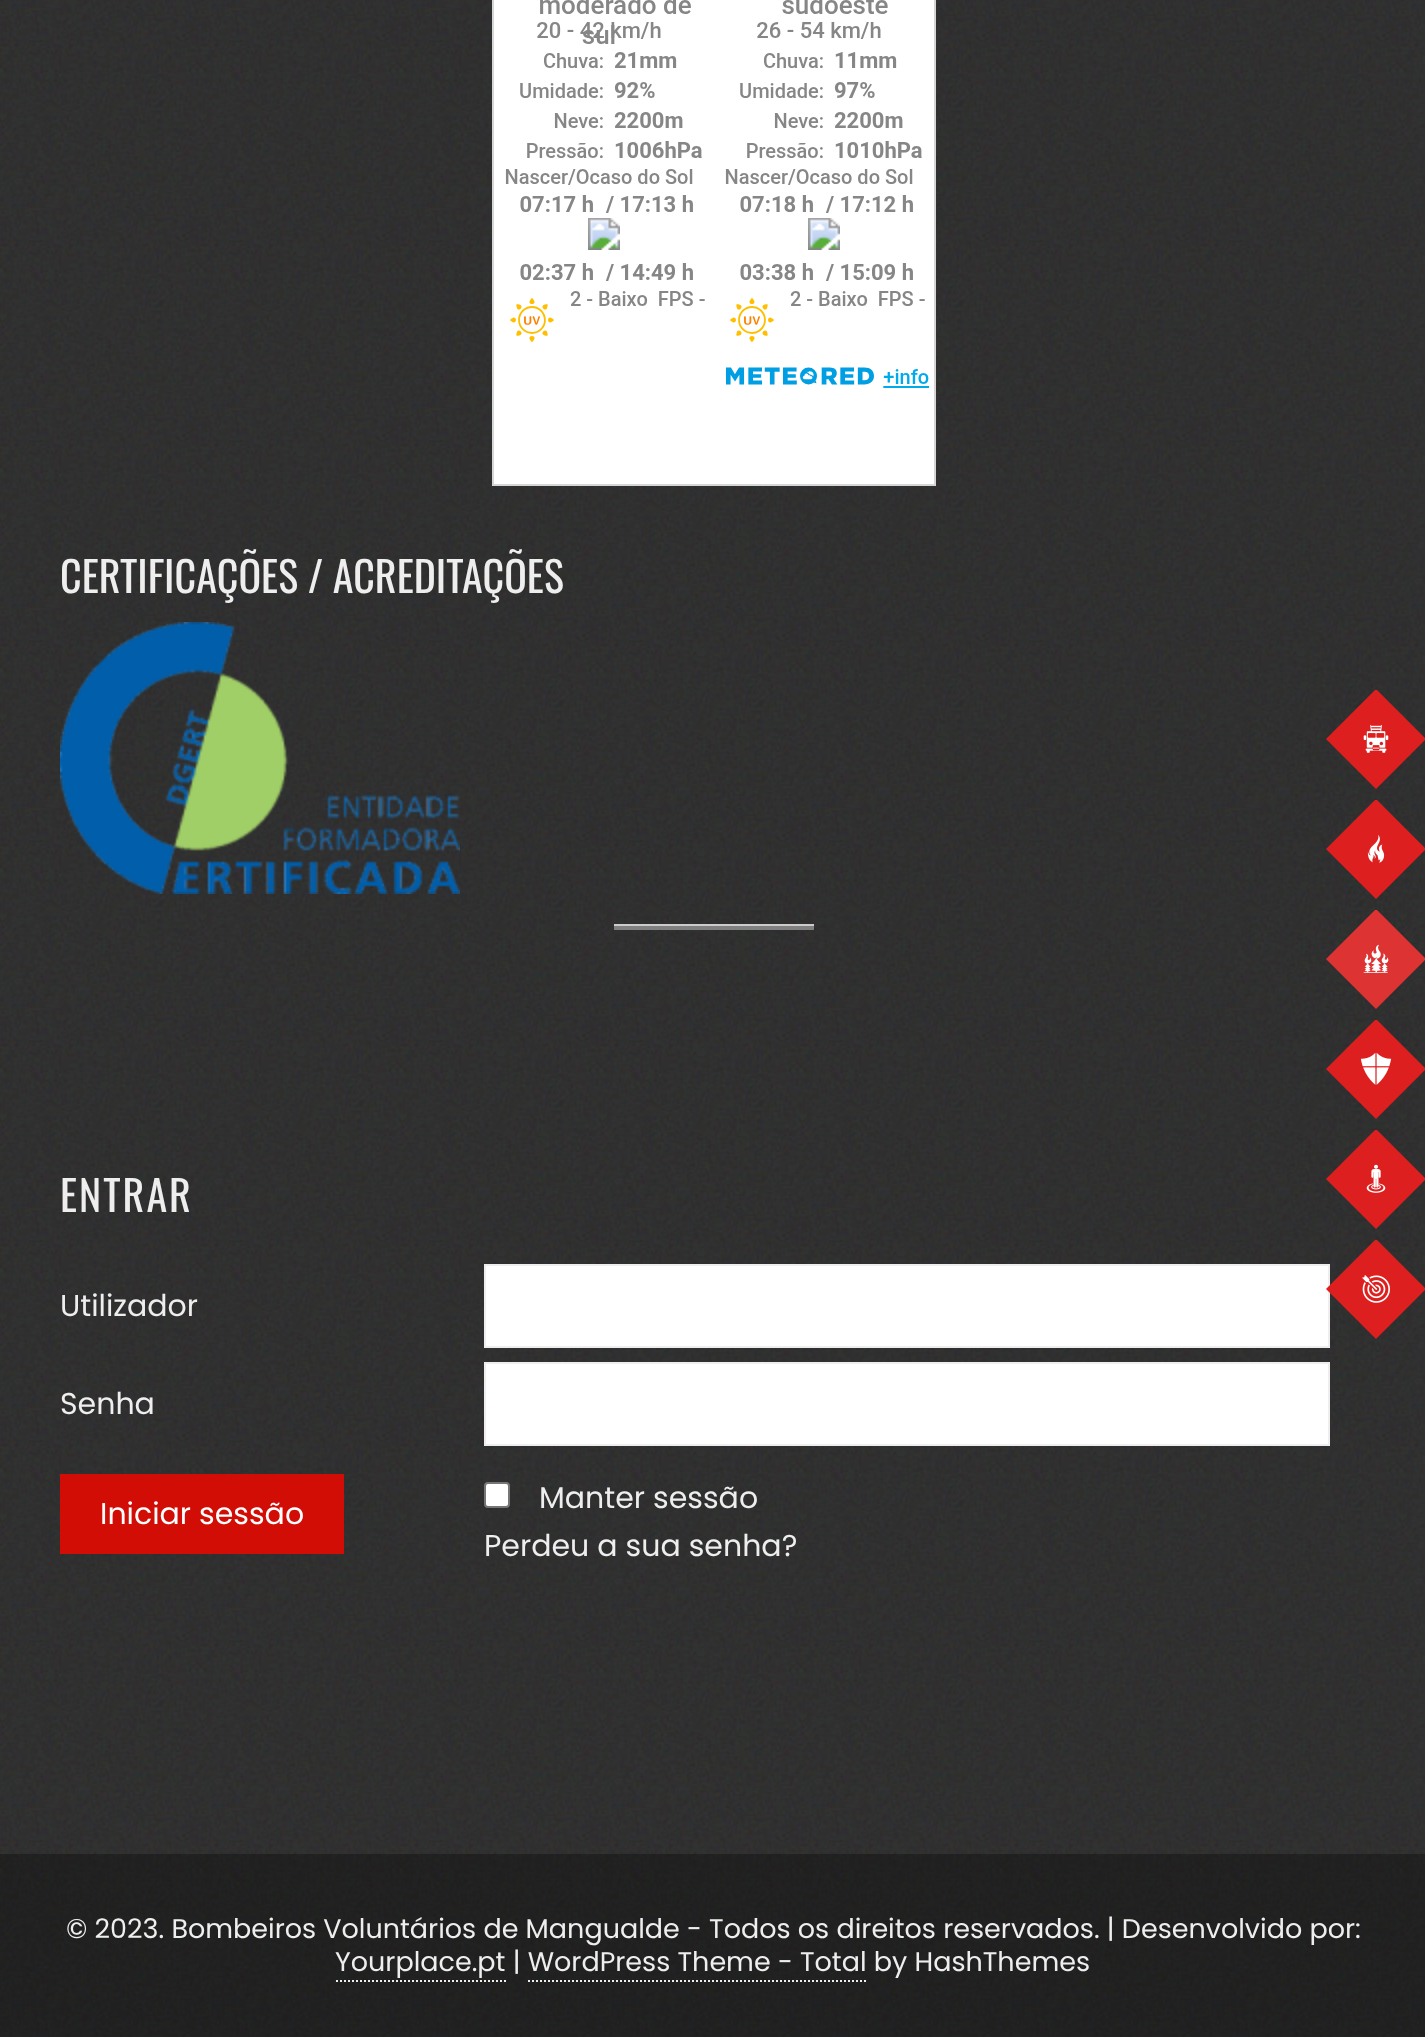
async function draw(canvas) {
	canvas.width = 1425;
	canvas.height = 2037;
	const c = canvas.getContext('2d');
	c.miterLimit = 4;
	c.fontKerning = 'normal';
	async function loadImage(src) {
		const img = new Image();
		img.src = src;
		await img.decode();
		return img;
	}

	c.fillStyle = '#fff';
	c.fillRect(0, 0, 1425, 2037);
	c.drawImage(await loadImage('img1.png'), 0, 0, 1425, 2037);
	c.beginPath();
	c.rect(493, -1, 442, 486);
	c.fill();
	c.strokeStyle = '#d6d6d6';
	c.lineWidth = 2;
	c.stroke();
	c.drawImage(await loadImage('img2.png'), 505, 0, 425, 388);
	c.font = '42px Oswald';
	c.fillStyle = '#eee';
	c.fillText('CERTIFICAÇÕES / ACREDITAÇÕES', 60, 593);
	c.drawImage(await loadImage('img3.png'), 60, 622, 400, 272);
	c.fillStyle = '#ccc';
	c.fillRect(614, 924, 200, 2);
	c.fillStyle = '#808080';
	c.fillRect(614, 926, 200, 4);
	c.letterSpacing = '2px';
	c.fillStyle = '#eee';
	c.fillText('ENTRAR', 60, 1212);
	c.letterSpacing = '0px';
	c.font = '30px Poppins';
	c.fillText('Utilizador', 60, 1316);
	c.fillStyle = '#fff';
	c.beginPath();
	c.rect(485, 1265, 844, 82);
	c.fill();
	c.strokeStyle = '#eee';
	c.stroke();
	c.fillStyle = '#eee';
	c.fillText('Senha', 60, 1414);
	c.fillStyle = '#fff';
	c.beginPath();
	c.rect(485, 1363, 844, 82);
	c.fill();
	c.stroke();
	c.fillStyle = '#d10d06';
	c.fillRect(60, 1474, 284, 80);
	c.fillStyle = '#fff';
	c.fillText('Iniciar sessão', 100, 1524);
	c.beginPath();
	c.roundRect(485, 1483, 24, 24, 3);
	c.fill();
	c.strokeStyle = '#767676';
	c.stroke();
	c.fillStyle = '#eee';
	c.fillText('Manter sessão', 539, 1508);
	c.fillText('Perdeu a sua senha?', 484, 1556);
	c.fillStyle = '#0000004d';
	c.fillRect(0, 1854, 1425, 183);
	c.font = '27px Poppins';
	c.fillStyle = '#eee';
	c.fillText('© 2023. Bombeiros Voluntários de Mangualde - Todos os direitos reservados. | Desenvolvido por:', 66, 1938);
	c.fillText('Yourplace.pt | WordPress Theme - Total by HashThemes', 335, 1971);
	c.beginPath();
	c.moveTo(336, 1981);
	c.lineTo(506, 1981);
	c.strokeStyle = '#eee';
	c.setLineDash([2, 2]);
	c.stroke();
	c.beginPath();
	c.moveTo(528, 1981);
	c.lineTo(868, 1981);
	c.stroke();
	c.fillStyle = '#dd1f1f';
	c.beginPath();
	c.moveTo(1377, 690);
	c.lineTo(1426, 739);
	c.lineTo(1376, 789);
	c.lineTo(1326, 739);
	c.lineTo(1375, 690);
	c.closePath();
	c.fill();
	c.drawImage(await loadImage('img4.png'), 1363, 724, 26, 29);
	c.beginPath();
	c.moveTo(1377, 800);
	c.lineTo(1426, 849);
	c.lineTo(1376, 899);
	c.lineTo(1326, 849);
	c.lineTo(1375, 800);
	c.closePath();
	c.fill();
	c.drawImage(await loadImage('img5.png'), 1367, 835, 18, 28);
	c.fillStyle = '#d33';
	c.beginPath();
	c.moveTo(1377, 910);
	c.lineTo(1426, 959);
	c.lineTo(1376, 1009);
	c.lineTo(1326, 959);
	c.lineTo(1375, 910);
	c.closePath();
	c.fill();
	c.drawImage(await loadImage('img6.png'), 1363, 944, 26, 29);
	c.fillStyle = '#dd1f1f';
	c.beginPath();
	c.moveTo(1377, 1020);
	c.lineTo(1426, 1069);
	c.lineTo(1376, 1119);
	c.lineTo(1326, 1069);
	c.lineTo(1375, 1020);
	c.closePath();
	c.fill();
	c.drawImage(await loadImage('img7.png'), 1360, 1052, 32, 33);
	c.beginPath();
	c.moveTo(1377, 1130);
	c.lineTo(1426, 1179);
	c.lineTo(1376, 1229);
	c.lineTo(1326, 1179);
	c.lineTo(1375, 1130);
	c.closePath();
	c.fill();
	c.drawImage(await loadImage('img8.png'), 1366, 1164, 20, 29);
	c.beginPath();
	c.moveTo(1377, 1240);
	c.lineTo(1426, 1289);
	c.lineTo(1376, 1339);
	c.lineTo(1326, 1289);
	c.lineTo(1375, 1240);
	c.closePath();
	c.fill();
	c.drawImage(await loadImage('img9.png'), 1362, 1275, 28, 28);
}

draw(document.querySelector('canvas'));
